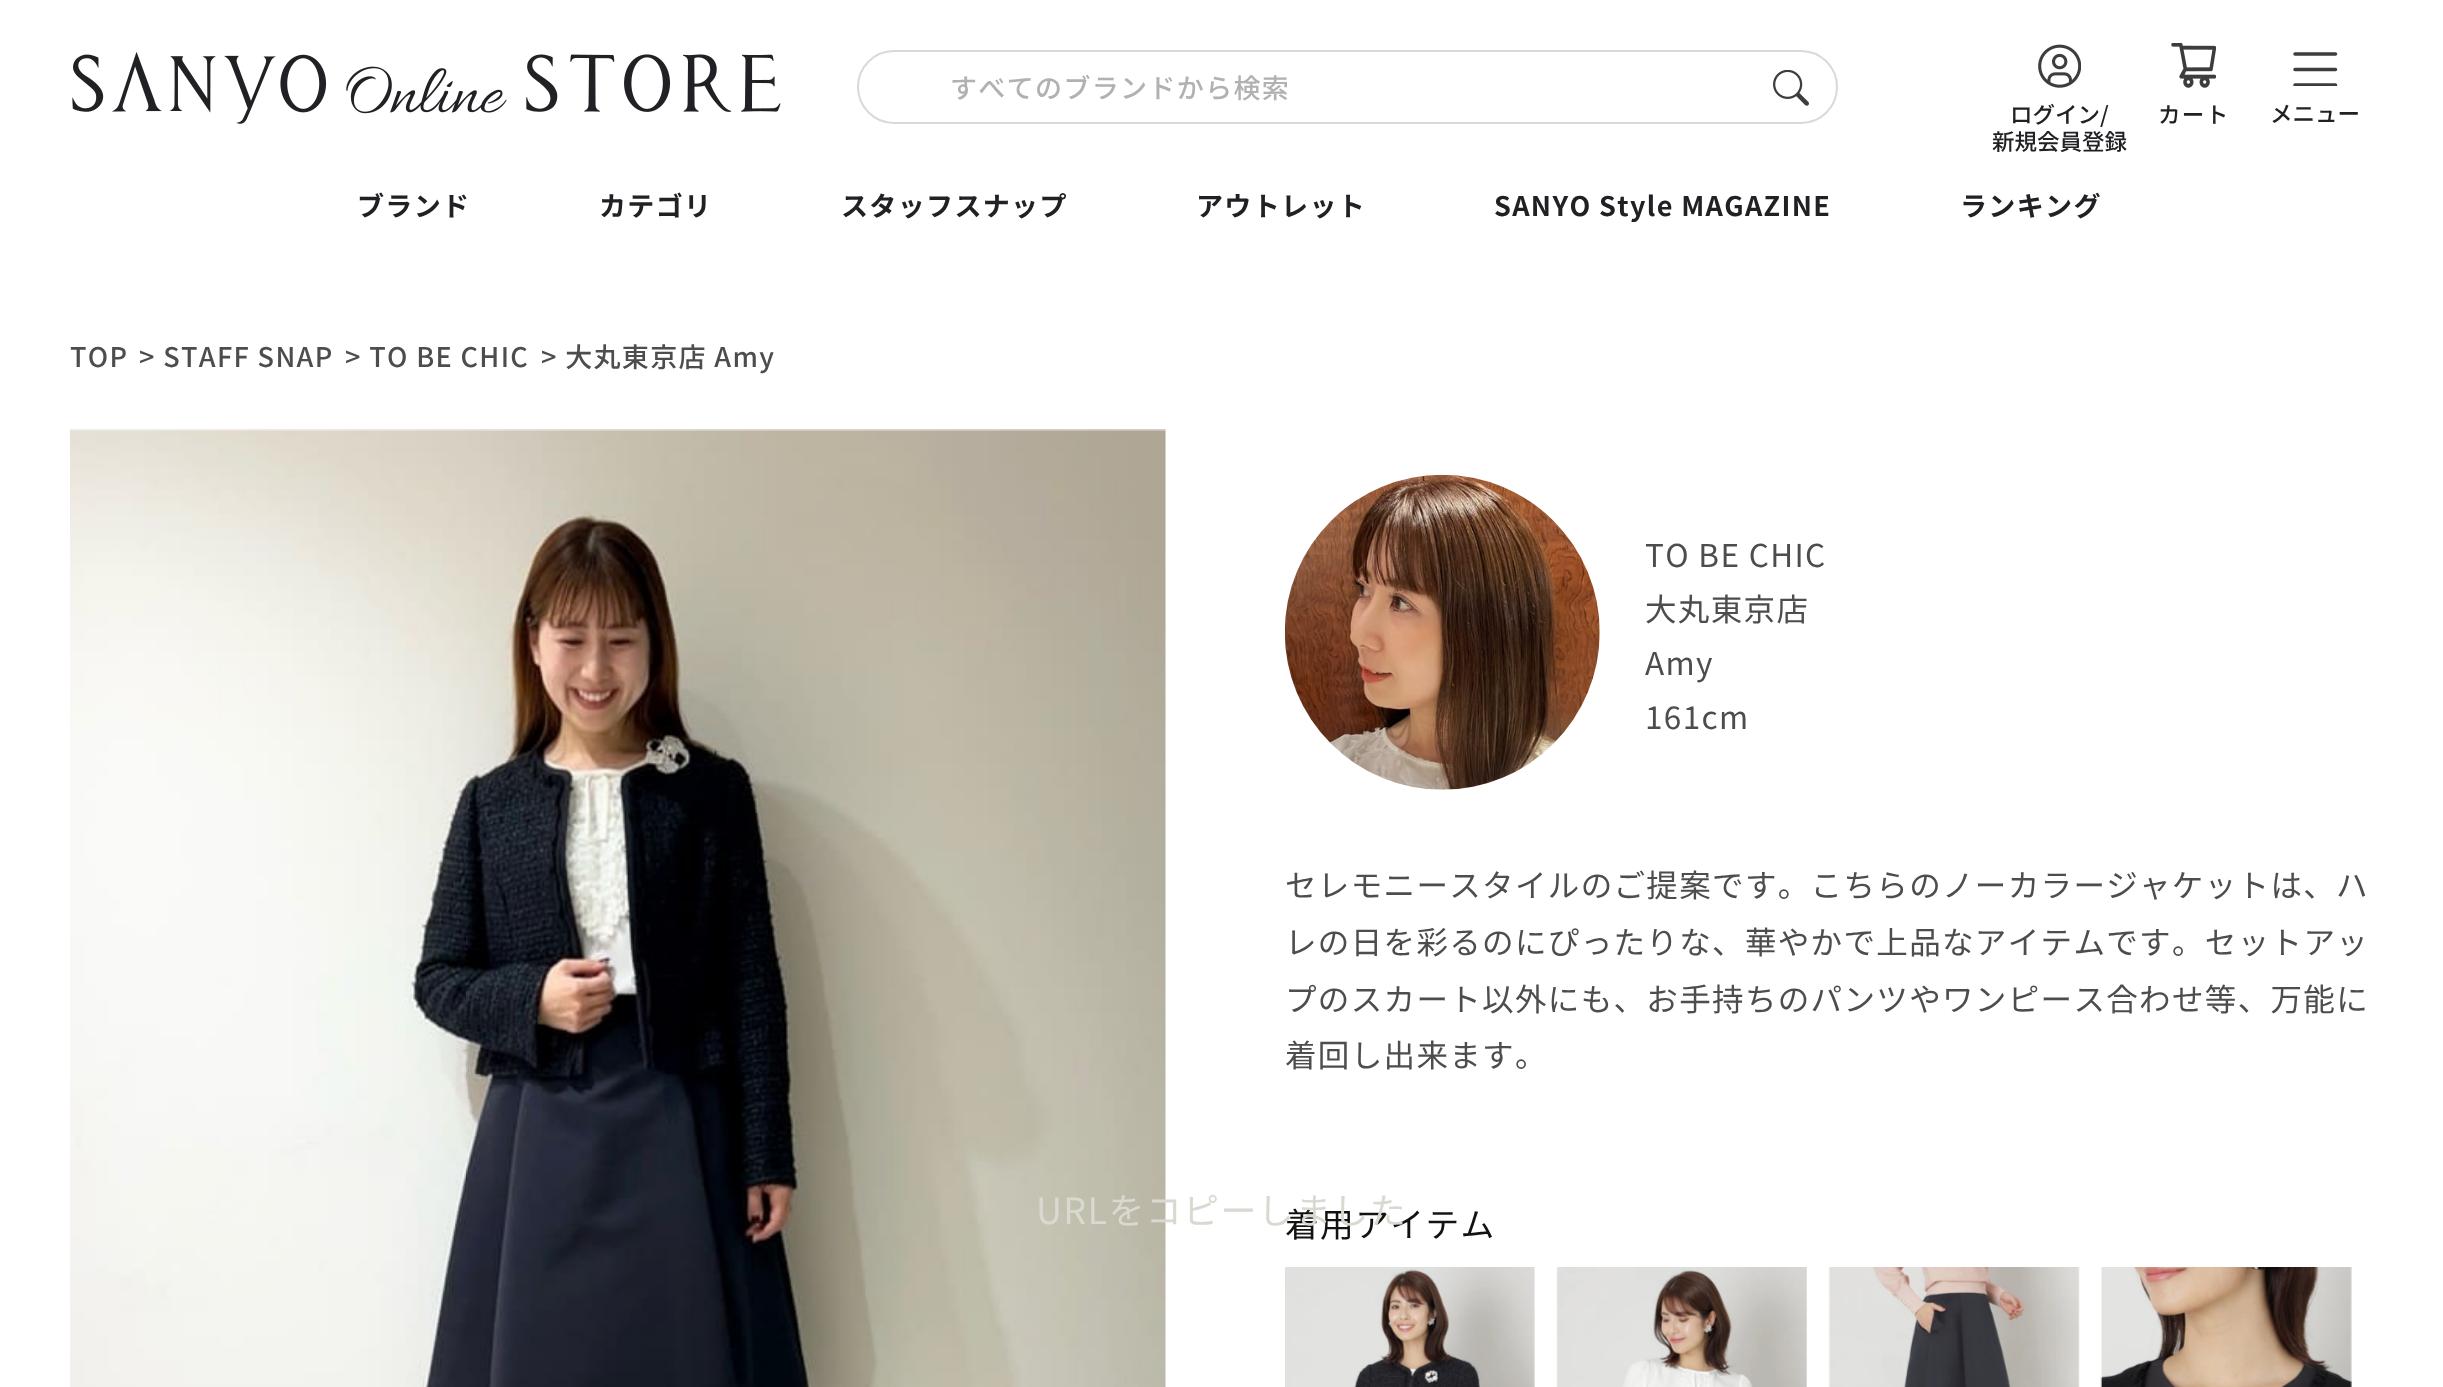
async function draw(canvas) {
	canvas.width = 2443;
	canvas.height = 1387;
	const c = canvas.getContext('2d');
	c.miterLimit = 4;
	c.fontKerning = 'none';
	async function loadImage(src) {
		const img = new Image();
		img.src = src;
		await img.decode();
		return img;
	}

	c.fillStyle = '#fff';
	c.fillRect(0, 0, 2443, 1387);
	c.drawImage(await loadImage('img1.png'), 72, 52, 709, 72);
	c.beginPath();
	c.roundRect(858, 51, 979, 72, 36);
	c.strokeStyle = '#d9d9d9';
	c.lineWidth = 2;
	c.stroke();
	c.letterSpacing = '1.35px';
	c.font = '500 27px Noto Sans JP';
	c.fillStyle = '#b1b1b1';
	c.fillText('すべてのブランドから検索', 950, 98);
	c.drawImage(await loadImage('img2.png'), 1773, 70, 36, 36);
	c.drawImage(await loadImage('img3.png'), 2038, 44, 43, 44);
	c.letterSpacing = '0px';
	c.font = '500 22.5px Noto Sans JP';
	c.fillStyle = '#202124';
	c.fillText('ログイン/', 2010, 123);
	c.fillText('新規会員登録', 1992, 150);
	c.drawImage(await loadImage('img4.png'), 2171, 43, 45, 45);
	c.letterSpacing = '1.35px';
	c.fillText('カート', 2158, 123);
	c.save();
	c.beginPath();
	c.rect(2293, 52, 45, 34);
	c.clip();
	c.beginPath();
	c.moveTo(2295, 85);
	c.lineTo(2335.5, 85);
	c.moveTo(2295, 69.5);
	c.lineTo(2335.5, 69.5);
	c.moveTo(2295, 54);
	c.lineTo(2335.5, 54);
	c.strokeStyle = '#3d3d3d';
	c.lineWidth = 3.5;
	c.lineCap = 'round';
	c.lineJoin = 'round';
	c.stroke();
	c.restore();
	c.letterSpacing = '0px';
	c.fillText('メニュー', 2270, 122);
	c.letterSpacing = '1.35px';
	c.font = 'bold 27px Noto Sans JP';
	for (const [text, x, y] of [
		['ブランド', 357, 216],
		['カテゴリ', 599, 216],
		['スタッフスナップ', 841, 216],
		['アウトレット', 1196, 216],
		['SANYO Style MAGAZINE', 1494, 216],
		['ランキング', 1960, 216],
	]) {
		c.fillText(text, x, y);
	}
	c.font = '500 27px Noto Sans JP';
	c.fillStyle = '#4d4d4d';
	for (const [text, x, y] of [
		['TOP', 70, 367],
		['> STAFF SNAP', 139, 367],
		['> TO BE CHIC', 345, 367],
		['> 大丸東京店 Amy', 541, 367],
	]) {
		c.fillText(text, x, y);
	}
	c.drawImage(await loadImage('img5.png'), 70, 429, 1096, 958);
	c.drawImage(await loadImage('img6.png'), 1284, 474, 316, 316);
	c.font = '31.5px Noto Sans JP';
	for (const [text, x, y] of [
		['TO BE CHIC', 1645, 567],
		['大丸東京店', 1645, 621],
		['Amy', 1645, 675],
		['161cm', 1645, 729],
		['セレモニースタイルのご提案です。こちらのノーカラージ', 1285, 897],
		['ャケットは、ハ', 2139, 897],
		['レの日を彩るのにぴったりな、華やかで上品なアイテムです', 1285, 954],
		['。セットアッ', 2172, 954],
		['プのスカート以外にも、お手持ちのパンツやワンピース合わせ等、万能に', 1285, 1011],
		['着回し出来ます。', 1285, 1067],
	]) {
		c.fillText(text, x, y);
	}
	c.font = '33.75px Noto Sans JP';
	c.fillStyle = '#121212';
	c.fillText('着用アイテム', 1285, 1237);
	c.font = '36px Noto Sans JP';
	c.fillStyle = '#d9d9d1';
	c.fillText('URLをコピーしました', 1036, 1224);
	c.drawImage(await loadImage('img7.png'), 1285, 1267, 250, 120);
	c.drawImage(await loadImage('img8.png'), 1556, 1267, 251, 120);
	c.drawImage(await loadImage('img9.png'), 1828, 1267, 252, 120);
	c.drawImage(await loadImage('img10.png'), 2100, 1267, 252, 120);
}

draw(document.querySelector('canvas'));
